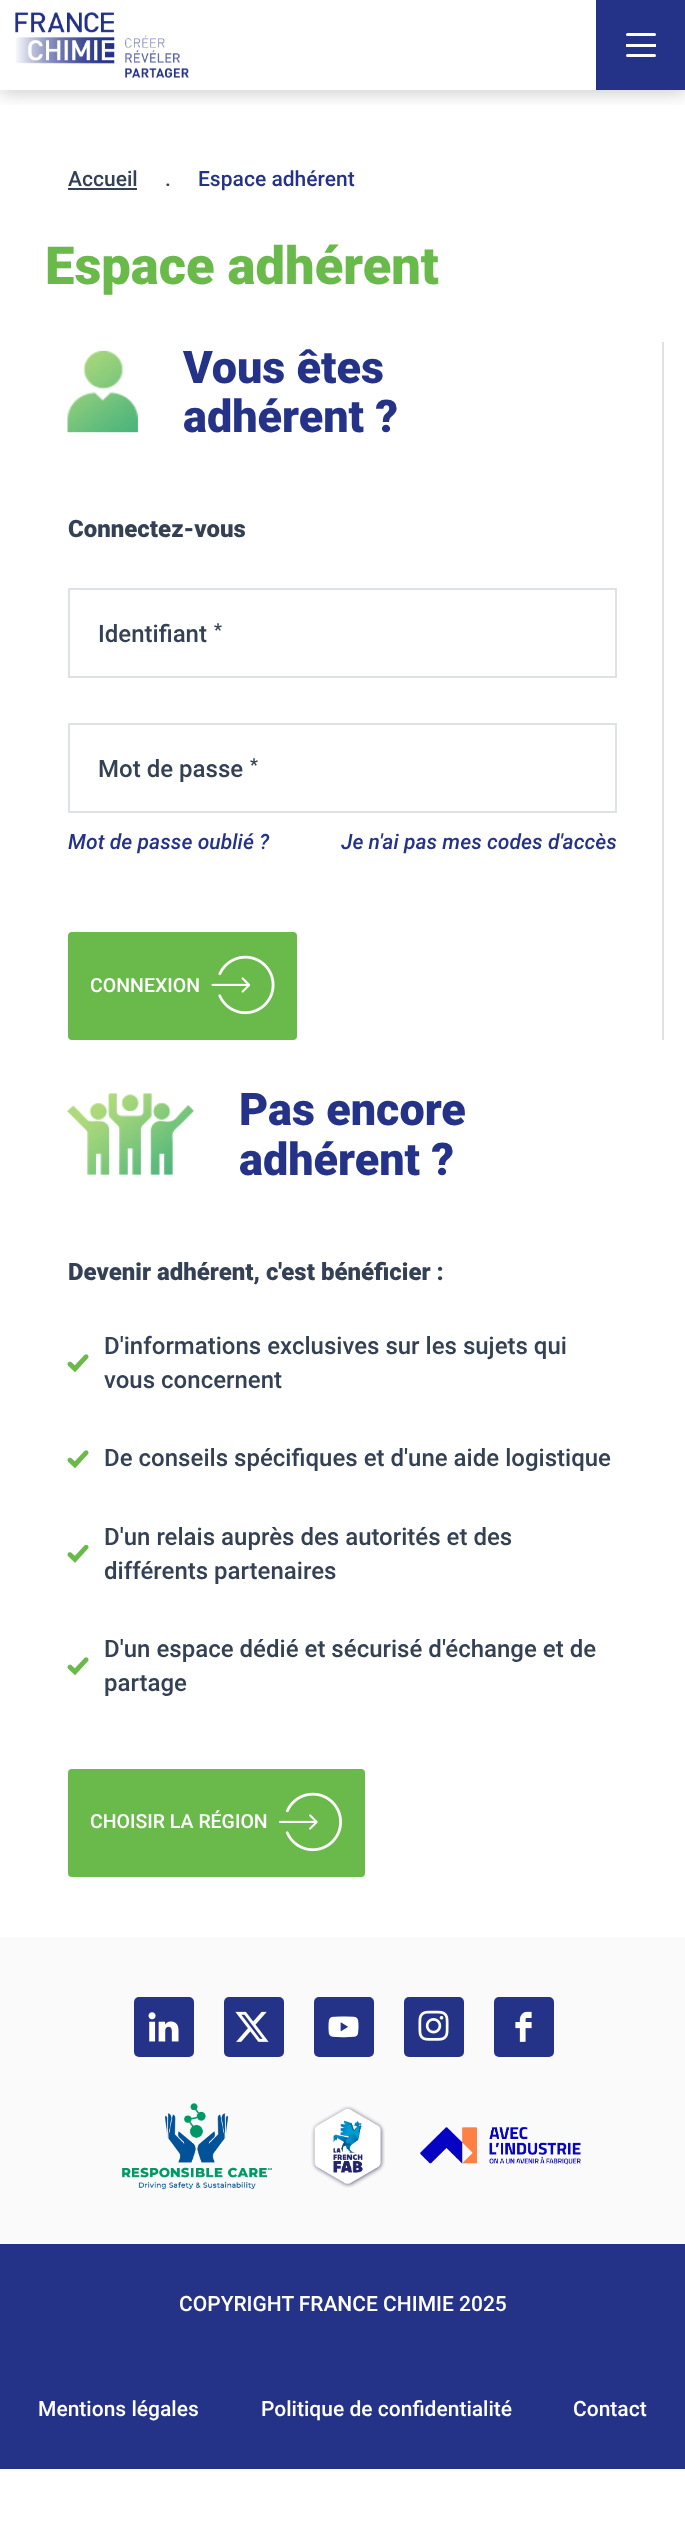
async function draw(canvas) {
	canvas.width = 685;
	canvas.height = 2528;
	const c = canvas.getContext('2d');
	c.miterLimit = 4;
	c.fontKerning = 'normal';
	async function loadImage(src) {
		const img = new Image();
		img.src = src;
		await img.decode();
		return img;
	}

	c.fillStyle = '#fff';
	c.fillRect(0, 0, 685, 2528);
	c.save();
	c.beginPath();
	c.rect(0, 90, 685, 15);
	c.clip();
	c.fillStyle = '#00000033';
	c.filter = 'blur(9px)';
	c.beginPath();
	c.rect(0, 3, 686, 90);
	c.fill();
	c.filter = 'none';
	c.restore();
	c.drawImage(await loadImage('img1.png'), 15, 12, 174, 66);
	c.fillStyle = '#243387';
	c.fillRect(596, 0, 89, 90);
	c.fillStyle = '#fff';
	c.fillRect(626, 44, 30, 3);
	c.beginPath();
	c.roundRect(626, 33, 30, 3, 1.5);
	c.fill();
	c.beginPath();
	c.roundRect(626, 54, 30, 3, 1.5);
	c.fill();
	c.font = '500 21px Roboto';
	c.fillStyle = '#344154';
	c.fillText('Accueil', 68, 186);
	c.fillRect(68, 188, 69, 2);
	c.fillText('.', 165, 186);
	c.fillStyle = '#243387';
	c.fillText('Espace adhérent', 198, 186);
	c.font = '900 52.5px Roboto';
	c.fillStyle = '#6ab94b';
	c.fillText('Espace adhérent', 45, 284);
	c.fillStyle = '#dee2e6';
	c.fillRect(662, 342, 2, 698);
	c.drawImage(await loadImage('img2.png'), 67, 350, 71, 83);
	c.font = '900 45px Roboto';
	c.fillStyle = '#243387';
	c.fillText('Vous êtes', 183, 383);
	c.fillText('adhérent ?', 183, 432);
	c.font = '900 24px Roboto';
	c.fillStyle = '#344154';
	c.fillText('Connectez-vous', 68, 537);
	c.strokeStyle = '#dee2e6';
	c.lineWidth = 2;
	c.strokeRect(69, 589, 547, 88);
	c.font = '500 24px Roboto';
	c.fillText('Identifiant', 98, 642);
	c.font = '500 18px Roboto';
	c.fillText('*', 214, 636);
	c.strokeRect(69, 724, 547, 88);
	c.font = '500 24px Roboto';
	c.fillText('Mot de passe', 98, 777);
	c.font = '500 18px Roboto';
	c.fillText('*', 250, 771);
	c.font = 'italic 500 21px Roboto';
	c.fillStyle = '#243387';
	c.fillText('Mot de passe oublié ?', 68, 849);
	c.fillText('Je n\'ai pas mes codes d\'accès', 341, 849);
	c.fillStyle = '#6ab94b';
	c.beginPath();
	c.roundRect(68, 932, 229, 108, 4);
	c.fill();
	c.font = '500 19.5px Roboto';
	c.fillStyle = '#fff';
	c.fillText('CONNEXION', 90, 992);
	c.drawImage(await loadImage('img3.png'), 211, 955, 64, 60);
	c.drawImage(await loadImage('img4.png'), 67, 1093, 127, 82);
	c.font = '900 45px Roboto';
	c.fillStyle = '#243387';
	c.fillText('Pas encore', 239, 1125);
	c.fillText('adhérent ?', 239, 1175);
	c.font = '900 24px Roboto';
	c.fillStyle = '#344154';
	c.fillText('Devenir adhérent, c\'est bénéficier :', 68, 1280);
	c.font = '500 24px Roboto';
	c.fillText('D\'informations exclusives sur les sujets qui', 104, 1354);
	c.drawImage(await loadImage('img5.png'), 67, 1354, 22, 19);
	c.fillText('vous concernent', 104, 1388);
	c.drawImage(await loadImage('img5.png'), 67, 1450, 22, 19);
	c.fillText('De conseils spécifiques et d\'une aide logistique', 104, 1466);
	c.fillText('D\'un relais auprès des autorités et des', 104, 1545);
	c.drawImage(await loadImage('img6.png'), 67, 1544, 22, 19);
	c.fillText('différents partenaires', 104, 1579);
	c.fillText('D\'un espace dédié et sécurisé d\'échange et de', 104, 1657);
	c.drawImage(await loadImage('img5.png'), 67, 1657, 22, 19);
	c.fillText('partage', 104, 1691);
	c.fillStyle = '#6ab94b';
	c.beginPath();
	c.roundRect(68, 1769, 297, 108, 4);
	c.fill();
	c.font = '500 19.5px Roboto';
	c.fillStyle = '#fff';
	c.fillText('CHOISIR LA RÉGION', 90, 1828);
	c.drawImage(await loadImage('img7.png'), 279, 1792, 63, 60);
	c.fillStyle = '#fafafa';
	c.fillRect(0, 1937, 685, 307);
	c.fillStyle = '#243387';
	c.beginPath();
	c.roundRect(134, 1997, 60, 60, 5);
	c.fill();
	c.drawImage(await loadImage('img8.png'), 148, 2012, 31, 30);
	c.beginPath();
	c.roundRect(224, 1997, 60, 60, 5);
	c.fill();
	c.drawImage(await loadImage('img9.png'), 235, 2011, 34, 31);
	c.beginPath();
	c.roundRect(314, 1997, 60, 60, 5);
	c.fill();
	c.drawImage(await loadImage('img10.png'), 328, 2016, 31, 22);
	c.beginPath();
	c.roundRect(404, 1997, 60, 60, 5);
	c.fill();
	c.drawImage(await loadImage('img11.png'), 418, 2010, 31, 31);
	c.beginPath();
	c.roundRect(494, 1997, 60, 60, 5);
	c.fill();
	c.drawImage(await loadImage('img12.png'), 515, 2011, 17, 31);
	c.drawImage(await loadImage('img13.png'), 122, 2103, 150, 87);
	c.drawImage(await loadImage('img14.png'), 311, 2106, 74, 82);
	c.drawImage(await loadImage('img15.png'), 420, 2127, 161, 38);
	c.fillRect(0, 2244, 685, 225);
	c.font = '500 21px Roboto';
	c.fillStyle = '#fff';
	for (const [text, x, y] of [
		['COPYRIGHT FRANCE CHIMIE 2025', 179, 2311],
		['Mentions légales', 38, 2416],
		['Politique de confidentialité', 261, 2416],
		['Contact', 573, 2416],
	]) {
		c.fillText(text, x, y);
	}
}

draw(document.querySelector('canvas'));
